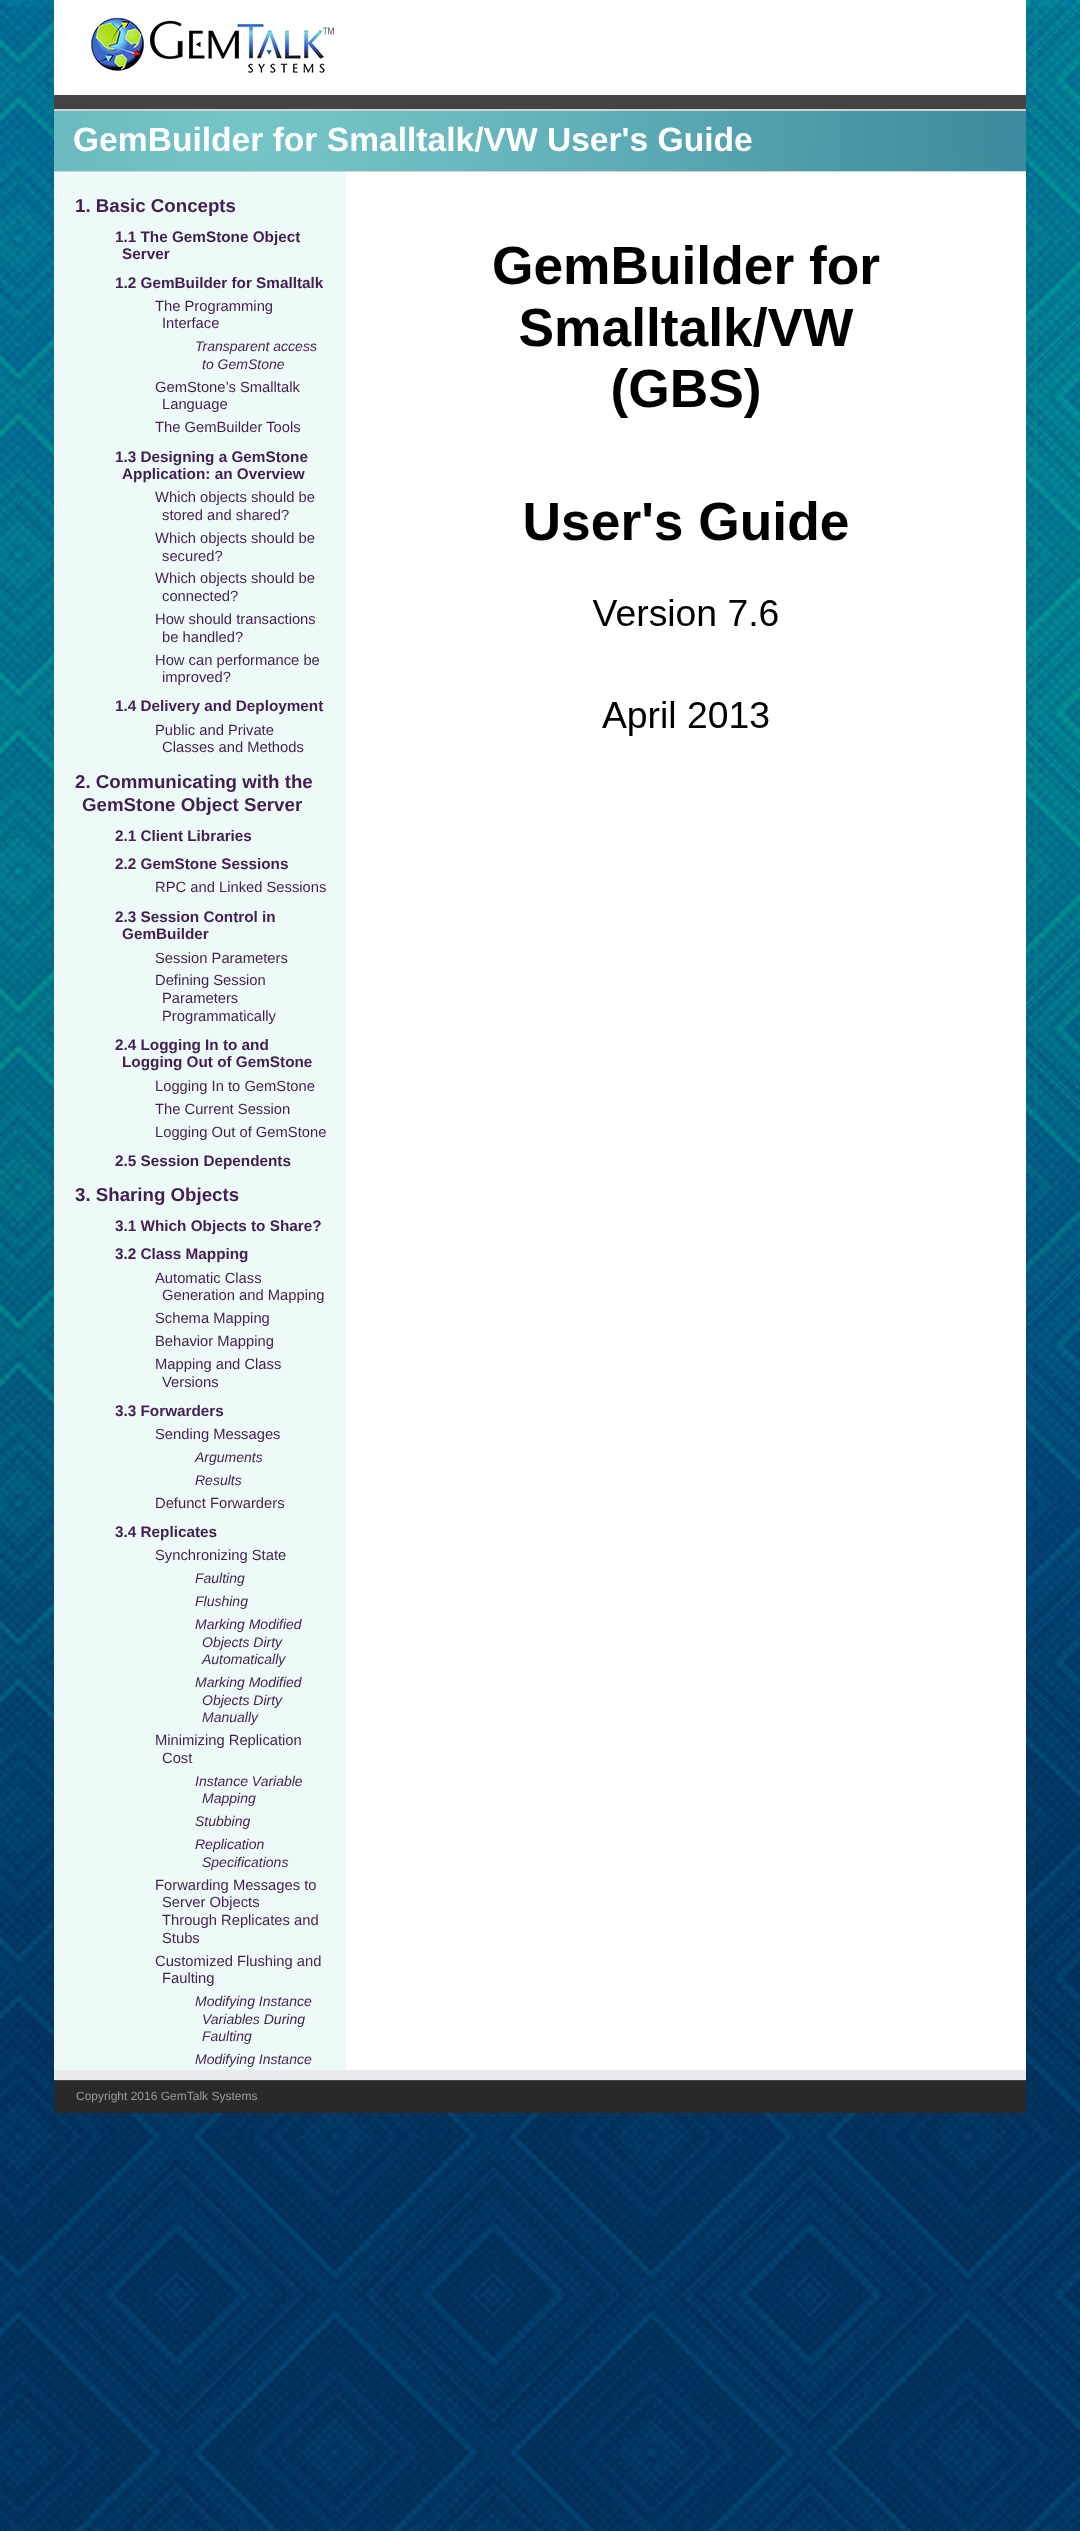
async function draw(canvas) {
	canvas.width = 1080;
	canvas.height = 2531;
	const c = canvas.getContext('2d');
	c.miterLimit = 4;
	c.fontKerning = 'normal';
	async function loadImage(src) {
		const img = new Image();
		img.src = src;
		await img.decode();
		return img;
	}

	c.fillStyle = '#fff';
	c.fillRect(0, 0, 1080, 2531);
	c.drawImage(await loadImage('img1.png'), 0, 0, 1080, 2531);
	c.fillRect(54, 0, 972, 2070);
	c.fillStyle = '#434343';
	c.fillRect(54, 95, 972, 14);
	c.drawImage(await loadImage('img2.png'), 91, 17, 243, 60);
	c.drawImage(await loadImage('img3.png'), 54, 111, 972, 60);
	c.fillStyle = '#d2d3d4';
	c.fillRect(54, 109, 972, 2);
	c.fillRect(54, 171, 972, 1);
	c.font = 'bold 33.6px Liberation Sans';
	c.fillStyle = '#fff';
	c.fillText('GemBuilder for Smalltalk/VW User\'s Guide', 73, 151);
	c.fillStyle = '#edfaf7';
	c.fillRect(54, 172, 292, 1898);
	c.font = 'bold 18.7px Liberation Sans';
	c.fillStyle = '#421f52';
	c.fillText('1. Basic Concepts', 75, 212);
	c.font = 'bold 15.3px Liberation Sans';
	for (const [text, x, y] of [
		['1.1 The GemStone Object', 115, 242],
		['Server', 122, 259],
		['1.2 GemBuilder for Smalltalk', 115, 288],
	]) {
		c.fillText(text, x, y);
	}
	c.font = '14.75px Liberation Sans';
	c.fillText('The Programming', 155, 311);
	c.fillText('Interface', 162, 328);
	c.font = 'italic 14px Liberation Sans';
	c.fillText('Transparent access', 195, 351);
	c.fillText('to GemStone', 202, 369);
	c.font = '14.75px Liberation Sans';
	for (const [text, x, y] of [
		['GemStone’s Smalltalk', 155, 392],
		['Language', 162, 409],
		['The GemBuilder Tools', 155, 432],
	]) {
		c.fillText(text, x, y);
	}
	c.font = 'bold 15.3px Liberation Sans';
	c.fillText('1.3 Designing a GemStone', 115, 462);
	c.fillText('Application: an Overview', 122, 479);
	c.font = '14.75px Liberation Sans';
	for (const [text, x, y] of [
		['Which objects should be', 155, 502],
		['stored and shared?', 162, 520],
		['Which objects should be', 155, 543],
		['secured?', 162, 561],
		['Which objects should be', 155, 583],
		['connected?', 162, 601],
		['How should transactions', 155, 624],
		['be handled?', 162, 642],
		['How can performance be', 155, 665],
		['improved?', 162, 682],
	]) {
		c.fillText(text, x, y);
	}
	c.font = 'bold 15.3px Liberation Sans';
	c.fillText('1.4 Delivery and Deployment', 115, 711);
	c.font = '14.75px Liberation Sans';
	c.fillText('Public and Private', 155, 735);
	c.fillText('Classes and Methods', 162, 752);
	c.font = 'bold 18.7px Liberation Sans';
	c.fillText('2. Communicating with the', 75, 788);
	c.fillText('GemStone Object Server', 82, 811);
	c.font = 'bold 15.3px Liberation Sans';
	c.fillText('2.1 Client Libraries', 115, 841);
	c.fillText('2.2 GemStone Sessions', 115, 869);
	c.font = '14.75px Liberation Sans';
	c.fillText('RPC and Linked Sessions', 155, 892);
	c.font = 'bold 15.3px Liberation Sans';
	c.fillText('2.3 Session Control in', 115, 922);
	c.fillText('GemBuilder', 122, 939);
	c.font = '14.75px Liberation Sans';
	for (const [text, x, y] of [
		['Session Parameters', 155, 963],
		['Defining Session', 155, 985],
		['Parameters', 162, 1003],
		['Programmatically', 162, 1021],
	]) {
		c.fillText(text, x, y);
	}
	c.font = 'bold 15.3px Liberation Sans';
	c.fillText('2.4 Logging In to and', 115, 1050);
	c.fillText('Logging Out of GemStone', 122, 1067);
	c.font = '14.75px Liberation Sans';
	for (const [text, x, y] of [
		['Logging In to GemStone', 155, 1091],
		['The Current Session', 155, 1114],
		['Logging Out of GemStone', 155, 1137],
	]) {
		c.fillText(text, x, y);
	}
	c.font = 'bold 15.3px Liberation Sans';
	c.fillText('2.5 Session Dependents', 115, 1166);
	c.font = 'bold 18.7px Liberation Sans';
	c.fillText('3. Sharing Objects', 75, 1201);
	c.font = 'bold 15.3px Liberation Sans';
	c.fillText('3.1 Which Objects to Share?', 115, 1231);
	c.fillText('3.2 Class Mapping', 115, 1259);
	c.font = '14.75px Liberation Sans';
	for (const [text, x, y] of [
		['Automatic Class', 155, 1283],
		['Generation and Mapping', 162, 1300],
		['Schema Mapping', 155, 1323],
		['Behavior Mapping', 155, 1346],
		['Mapping and Class', 155, 1369],
		['Versions', 162, 1387],
	]) {
		c.fillText(text, x, y);
	}
	c.font = 'bold 15.3px Liberation Sans';
	c.fillText('3.3 Forwarders', 115, 1416);
	c.font = '14.75px Liberation Sans';
	c.fillText('Sending Messages', 155, 1439);
	c.font = 'italic 14px Liberation Sans';
	c.fillText('Arguments', 195, 1462);
	c.fillText('Results', 195, 1485);
	c.font = '14.75px Liberation Sans';
	c.fillText('Defunct Forwarders', 155, 1508);
	c.font = 'bold 15.3px Liberation Sans';
	c.fillText('3.4 Replicates', 115, 1537);
	c.font = '14.75px Liberation Sans';
	c.fillText('Synchronizing State', 155, 1560);
	c.font = 'italic 14px Liberation Sans';
	for (const [text, x, y] of [
		['Faulting', 195, 1583],
		['Flushing', 195, 1606],
		['Marking Modified', 195, 1629],
		['Objects Dirty', 202, 1647],
		['Automatically', 202, 1664],
		['Marking Modified', 195, 1687],
		['Objects Dirty', 202, 1705],
		['Manually', 202, 1722],
	]) {
		c.fillText(text, x, y);
	}
	c.font = '14.75px Liberation Sans';
	c.fillText('Minimizing Replication', 155, 1745);
	c.fillText('Cost', 162, 1763);
	c.font = 'italic 14px Liberation Sans';
	for (const [text, x, y] of [
		['Instance Variable', 195, 1786],
		['Mapping', 202, 1803],
		['Stubbing', 195, 1826],
		['Replication', 195, 1849],
		['Specifications', 202, 1867],
	]) {
		c.fillText(text, x, y);
	}
	c.font = '14.75px Liberation Sans';
	for (const [text, x, y] of [
		['Forwarding Messages to', 155, 1890],
		['Server Objects', 162, 1907],
		['Through Replicates and', 162, 1925],
		['Stubs', 162, 1943],
		['Customized Flushing and', 155, 1966],
		['Faulting', 162, 1983],
	]) {
		c.fillText(text, x, y);
	}
	c.font = 'italic 14px Liberation Sans';
	for (const [text, x, y] of [
		['Modifying Instance', 195, 2006],
		['Variables During', 202, 2024],
		['Faulting', 202, 2041],
		['Modifying Instance', 195, 2064],
	]) {
		c.fillText(text, x, y);
	}
	c.drawImage(await loadImage('img4.png'), 494, 245, 386, 491);
	for (const [x, y, w, h, color] of [
		[54, 2070, 972, 10, '#e9eaee'],
		[54, 2081, 972, 32, '#292929'],
		[54, 2080, 972, 1, '#434343'],
	]) {
		c.fillStyle = color;
		c.fillRect(x, y, w, h);
	}
	c.font = '12px Liberation Sans';
	c.fillStyle = '#9f9c9c';
	c.fillText('Copyright 2016 GemTalk Systems', 76, 2100);
}

draw(document.querySelector('canvas'));
